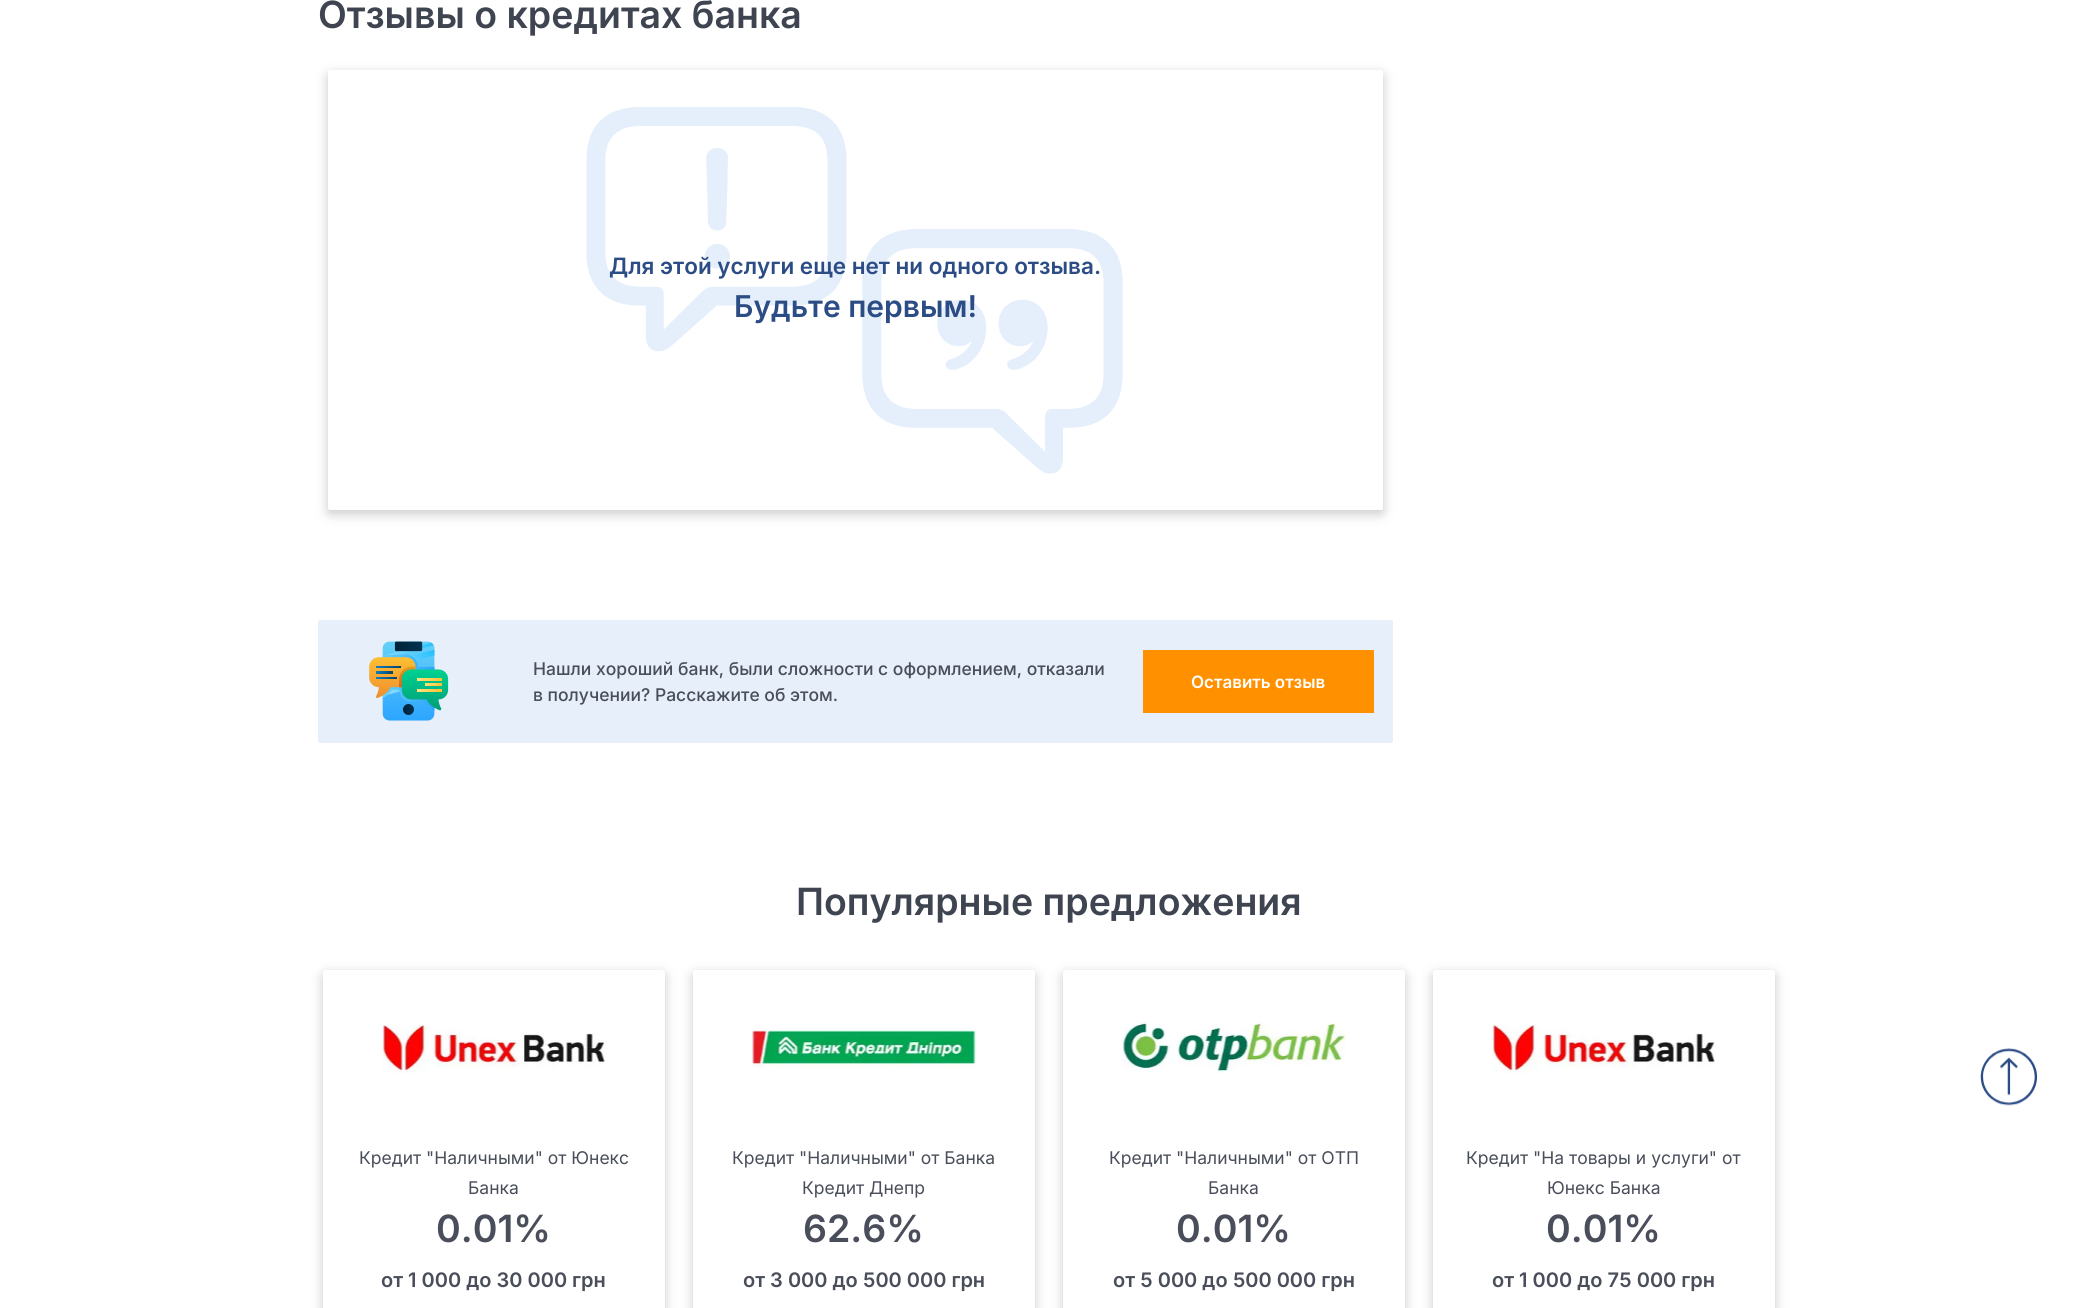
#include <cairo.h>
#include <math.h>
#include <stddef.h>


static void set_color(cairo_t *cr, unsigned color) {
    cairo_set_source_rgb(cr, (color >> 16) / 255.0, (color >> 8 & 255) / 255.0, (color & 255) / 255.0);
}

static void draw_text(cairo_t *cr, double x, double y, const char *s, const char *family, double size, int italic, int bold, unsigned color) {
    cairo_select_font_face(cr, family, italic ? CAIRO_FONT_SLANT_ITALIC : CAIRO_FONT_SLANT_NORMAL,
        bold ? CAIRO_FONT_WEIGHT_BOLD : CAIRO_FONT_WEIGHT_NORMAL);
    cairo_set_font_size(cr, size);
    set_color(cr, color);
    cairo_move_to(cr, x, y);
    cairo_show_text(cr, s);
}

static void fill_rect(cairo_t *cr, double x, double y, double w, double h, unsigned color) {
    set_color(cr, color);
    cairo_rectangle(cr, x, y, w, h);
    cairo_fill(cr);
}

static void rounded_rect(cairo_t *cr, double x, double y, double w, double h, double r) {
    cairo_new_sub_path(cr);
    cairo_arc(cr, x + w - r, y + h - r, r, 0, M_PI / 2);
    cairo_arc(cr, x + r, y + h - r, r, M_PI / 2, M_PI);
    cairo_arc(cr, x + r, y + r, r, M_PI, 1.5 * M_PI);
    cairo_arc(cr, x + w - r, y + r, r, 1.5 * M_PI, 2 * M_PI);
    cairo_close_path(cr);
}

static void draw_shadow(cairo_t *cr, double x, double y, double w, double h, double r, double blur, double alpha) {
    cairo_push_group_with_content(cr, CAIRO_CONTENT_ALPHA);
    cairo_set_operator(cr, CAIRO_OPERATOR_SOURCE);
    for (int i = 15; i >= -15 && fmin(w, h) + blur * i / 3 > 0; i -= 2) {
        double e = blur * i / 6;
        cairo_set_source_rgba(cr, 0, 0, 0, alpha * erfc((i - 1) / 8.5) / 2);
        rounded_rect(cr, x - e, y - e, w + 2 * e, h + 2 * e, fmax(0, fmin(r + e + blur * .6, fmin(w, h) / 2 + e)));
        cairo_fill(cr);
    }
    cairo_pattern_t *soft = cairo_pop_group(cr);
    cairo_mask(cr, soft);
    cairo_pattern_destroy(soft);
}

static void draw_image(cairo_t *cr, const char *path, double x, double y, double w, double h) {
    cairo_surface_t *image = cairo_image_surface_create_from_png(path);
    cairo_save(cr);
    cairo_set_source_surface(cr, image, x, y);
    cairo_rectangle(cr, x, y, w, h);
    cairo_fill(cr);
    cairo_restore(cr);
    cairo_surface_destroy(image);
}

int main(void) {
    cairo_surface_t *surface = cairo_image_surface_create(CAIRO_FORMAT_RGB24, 2097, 1308);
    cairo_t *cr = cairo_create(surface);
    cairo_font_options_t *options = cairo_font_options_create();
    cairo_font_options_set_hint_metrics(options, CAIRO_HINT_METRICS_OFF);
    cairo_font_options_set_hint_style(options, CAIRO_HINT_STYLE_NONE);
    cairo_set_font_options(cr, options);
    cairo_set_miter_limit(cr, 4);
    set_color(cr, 0xFFFFFF);
    cairo_paint(cr);
    draw_text(cr, 318, 28, "Отзывы о кредитах банка", "Inter SemiBold", 37.5, 0, 0, 0x3F4451);
    cairo_save(cr);
    cairo_set_fill_rule(cr, CAIRO_FILL_RULE_EVEN_ODD);
    cairo_new_path(cr);
    cairo_move_to(cr, 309, 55);
    cairo_line_to(cr, 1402, 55);
    cairo_line_to(cr, 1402, 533);
    cairo_line_to(cr, 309, 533);
    cairo_close_path(cr);
    cairo_move_to(cr, 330.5, 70);
    cairo_line_to(cr, 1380.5, 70);
    cairo_curve_to(cr, 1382, 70, 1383, 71, 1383, 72.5);
    cairo_line_to(cr, 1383, 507.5);
    cairo_curve_to(cr, 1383, 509, 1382, 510, 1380.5, 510);
    cairo_line_to(cr, 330.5, 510);
    cairo_curve_to(cr, 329, 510, 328, 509, 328, 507.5);
    cairo_line_to(cr, 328, 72.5);
    cairo_curve_to(cr, 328, 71, 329, 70, 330.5, 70);
    cairo_close_path(cr);
    cairo_clip(cr);
    set_color(cr, 0x2C2B2B);
    draw_shadow(cr, 328, 74, 1055, 440, 2.5, 6, 0.25);
    cairo_restore(cr);
    draw_image(cr, "assets/img1.png", 586, 107, 537, 367);
    draw_text(cr, 609, 274, "Для этой услуги еще нет ни одного отзыва.", "Inter SemiBold", 22.5, 0, 0, 0x2B4C85);
    draw_text(cr, 734, 317, "Будьте первым!", "Inter SemiBold", 30, 0, 0, 0x2B4C85);
    set_color(cr, 0xE7EFFA);
    rounded_rect(cr, 318, 620, 1075, 123, 2.5);
    cairo_fill(cr);
    draw_image(cr, "assets/img2.png", 369, 641, 80, 80);
    draw_text(cr, 533, 675, "Нашли хороший банк, были сложности с оформлением, отказали", "Inter Medium", 17.5, 0, 0, 0x494E5A);
    draw_text(cr, 533, 701, "в получении? Расскажите об этом.", "Inter Medium", 17.5, 0, 0, 0x494E5A);
    fill_rect(cr, 1143, 650, 231, 63, 0xFF9100);
    draw_text(cr, 1191, 688, "Оставить отзыв", "Inter SemiBold", 17, 0, 0, 0xFFFFFF);
    draw_text(cr, 796, 915, "Популярные предложения", "Inter SemiBold", 37.5, 0, 0, 0x3F4451);
    set_color(cr, 0x2C2B2B);
    draw_shadow(cr, 323, 974, 342, 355, 2.5, 6, 0.25);
    set_color(cr, 0xFFFFFF);
    rounded_rect(cr, 323, 970, 342, 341, 2.5);
    cairo_fill(cr);
    draw_image(cr, "assets/img3.png", 382, 1025, 223, 48);
    draw_text(cr, 359, 1164, "Кредит \"Наличными\" от Юнекс", "Inter", 17.5, 0, 0, 0x494E5A);
    draw_text(cr, 468, 1194, "Банка", "Inter", 17.5, 0, 0, 0x494E5A);
    draw_text(cr, 436, 1242, "0.01%", "Inter SemiBold", 37.5, 0, 0, 0x494E5A);
    draw_text(cr, 381, 1287, "от 1 000 до 30 000 грн", "Inter SemiBold", 20, 0, 0, 0x494E5A);
    set_color(cr, 0x2C2B2B);
    draw_shadow(cr, 693, 974, 342, 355, 2.5, 6, 0.25);
    set_color(cr, 0xFFFFFF);
    rounded_rect(cr, 693, 970, 342, 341, 2.5);
    cairo_fill(cr);
    draw_image(cr, "assets/img4.png", 752, 1030, 224, 39);
    draw_text(cr, 732, 1164, "Кредит \"Наличными\" от Банка", "Inter", 17.5, 0, 0, 0x494E5A);
    draw_text(cr, 802, 1194, "Кредит Днепр", "Inter", 17.5, 0, 0, 0x494E5A);
    draw_text(cr, 803, 1242, "62.6%", "Inter SemiBold", 37.5, 0, 0, 0x494E5A);
    draw_text(cr, 743, 1287, "от 3 000 до 500 000 грн", "Inter SemiBold", 20, 0, 0, 0x494E5A);
    set_color(cr, 0x2C2B2B);
    draw_shadow(cr, 1063, 974, 342, 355, 2.5, 6, 0.25);
    set_color(cr, 0xFFFFFF);
    rounded_rect(cr, 1063, 970, 342, 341, 2.5);
    cairo_fill(cr);
    draw_image(cr, "assets/img5.png", 1122, 1020, 224, 53);
    draw_text(cr, 1109, 1164, "Кредит \"Наличными\" от ОТП", "Inter", 17.5, 0, 0, 0x494E5A);
    draw_text(cr, 1208, 1194, "Банка", "Inter", 17.5, 0, 0, 0x494E5A);
    draw_text(cr, 1176, 1242, "0.01%", "Inter SemiBold", 37.5, 0, 0, 0x494E5A);
    draw_text(cr, 1113, 1287, "от 5 000 до 500 000 грн", "Inter SemiBold", 20, 0, 0, 0x494E5A);
    set_color(cr, 0x2C2B2B);
    draw_shadow(cr, 1433, 974, 342, 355, 2.5, 6, 0.25);
    set_color(cr, 0xFFFFFF);
    rounded_rect(cr, 1433, 970, 342, 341, 2.5);
    cairo_fill(cr);
    draw_image(cr, "assets/img6.png", 1492, 1025, 223, 48);
    draw_text(cr, 1466, 1164, "Кредит \"На товары и услуги\" от", "Inter", 17.5, 0, 0, 0x494E5A);
    draw_text(cr, 1547, 1194, "Юнекс Банка", "Inter", 17.5, 0, 0, 0x494E5A);
    draw_text(cr, 1546, 1242, "0.01%", "Inter SemiBold", 37.5, 0, 0, 0x494E5A);
    draw_text(cr, 1492, 1287, "от 1 000 до 75 000 грн", "Inter SemiBold", 20, 0, 0, 0x494E5A);
    draw_image(cr, "assets/img7.png", 1980, 1048, 58, 58);
    cairo_surface_write_to_png(surface, "output.png");
    cairo_font_options_destroy(options);
    cairo_destroy(cr);
    cairo_surface_destroy(surface);
    return 0;
}
